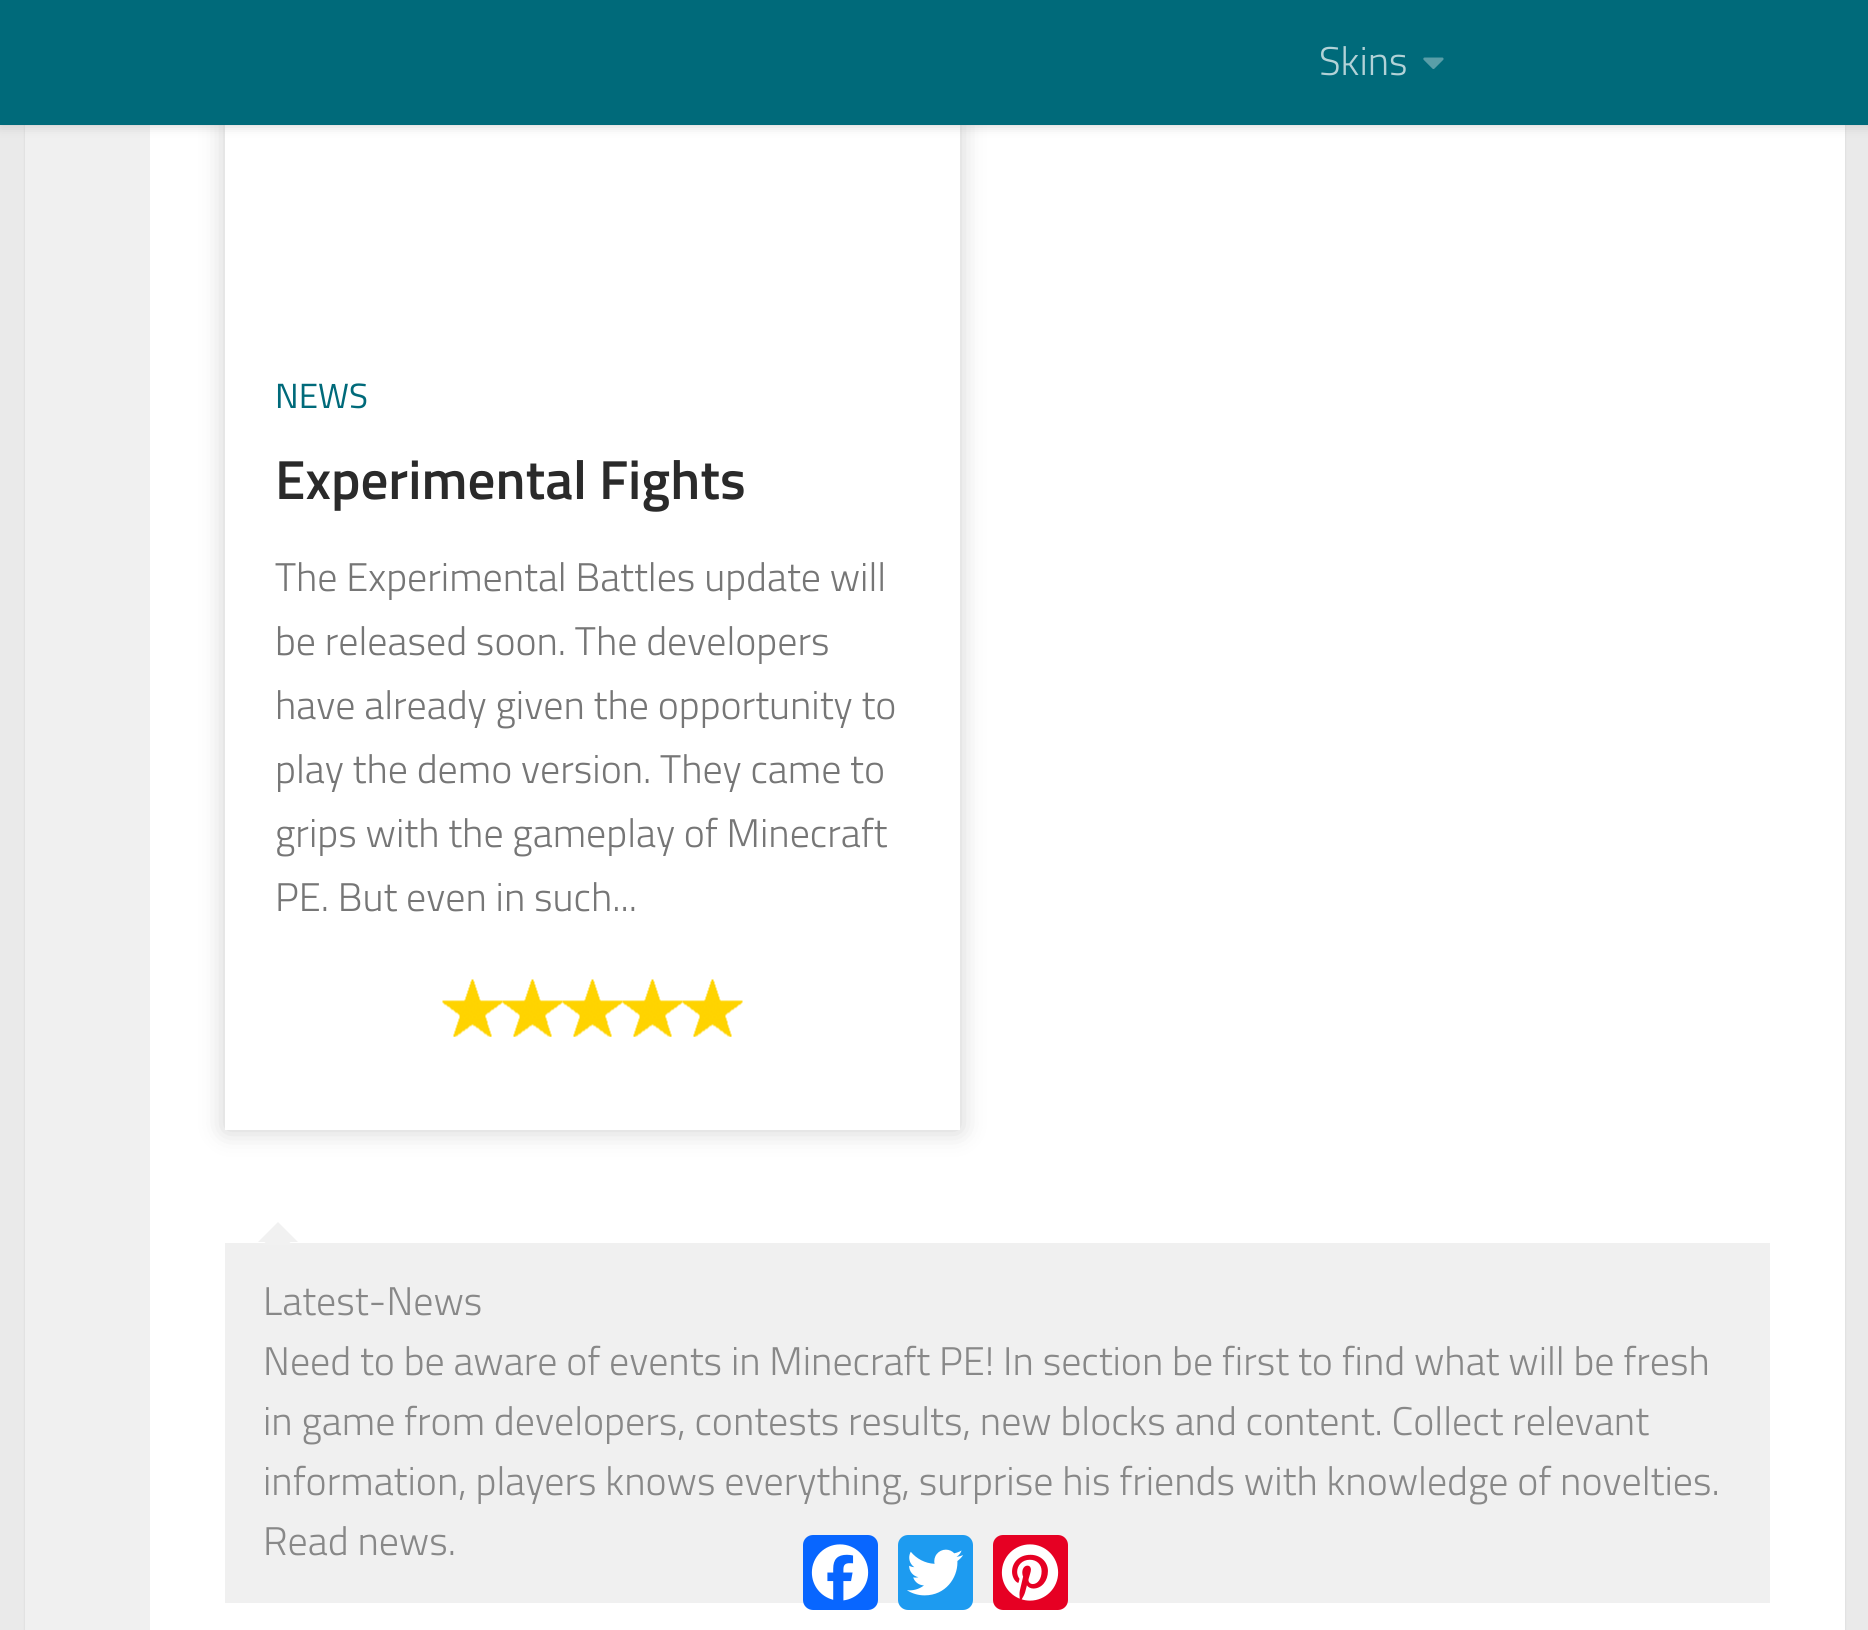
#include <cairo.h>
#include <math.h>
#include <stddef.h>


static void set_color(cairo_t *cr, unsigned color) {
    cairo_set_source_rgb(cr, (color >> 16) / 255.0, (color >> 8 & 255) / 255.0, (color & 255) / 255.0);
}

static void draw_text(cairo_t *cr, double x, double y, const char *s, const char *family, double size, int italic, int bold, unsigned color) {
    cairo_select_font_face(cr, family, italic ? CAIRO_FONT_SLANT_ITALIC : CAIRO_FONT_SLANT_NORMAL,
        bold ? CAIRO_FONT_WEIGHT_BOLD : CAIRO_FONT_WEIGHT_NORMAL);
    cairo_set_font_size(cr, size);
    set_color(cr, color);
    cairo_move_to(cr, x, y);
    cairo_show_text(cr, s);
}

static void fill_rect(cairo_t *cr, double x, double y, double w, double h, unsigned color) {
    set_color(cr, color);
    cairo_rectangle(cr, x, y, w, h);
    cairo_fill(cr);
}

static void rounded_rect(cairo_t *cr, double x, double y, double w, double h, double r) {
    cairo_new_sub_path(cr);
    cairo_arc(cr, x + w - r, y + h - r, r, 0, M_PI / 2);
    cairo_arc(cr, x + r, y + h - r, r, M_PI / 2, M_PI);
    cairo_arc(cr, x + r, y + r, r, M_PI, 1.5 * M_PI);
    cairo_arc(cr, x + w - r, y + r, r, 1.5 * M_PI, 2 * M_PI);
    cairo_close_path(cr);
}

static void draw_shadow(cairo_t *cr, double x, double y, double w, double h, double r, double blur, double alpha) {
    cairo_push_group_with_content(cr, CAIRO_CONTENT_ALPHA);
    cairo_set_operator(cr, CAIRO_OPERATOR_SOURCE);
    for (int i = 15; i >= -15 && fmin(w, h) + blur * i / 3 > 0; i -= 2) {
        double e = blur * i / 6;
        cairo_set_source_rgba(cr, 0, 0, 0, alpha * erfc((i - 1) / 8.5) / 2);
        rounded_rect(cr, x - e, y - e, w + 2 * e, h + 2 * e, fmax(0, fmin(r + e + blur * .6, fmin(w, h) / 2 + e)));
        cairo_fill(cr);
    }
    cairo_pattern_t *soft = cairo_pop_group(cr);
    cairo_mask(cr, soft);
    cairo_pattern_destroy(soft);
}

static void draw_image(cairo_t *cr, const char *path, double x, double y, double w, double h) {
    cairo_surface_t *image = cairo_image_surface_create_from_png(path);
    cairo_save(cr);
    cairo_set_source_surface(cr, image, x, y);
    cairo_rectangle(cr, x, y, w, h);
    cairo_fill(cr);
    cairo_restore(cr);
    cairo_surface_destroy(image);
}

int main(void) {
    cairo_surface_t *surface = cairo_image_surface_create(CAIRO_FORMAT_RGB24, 1868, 1630);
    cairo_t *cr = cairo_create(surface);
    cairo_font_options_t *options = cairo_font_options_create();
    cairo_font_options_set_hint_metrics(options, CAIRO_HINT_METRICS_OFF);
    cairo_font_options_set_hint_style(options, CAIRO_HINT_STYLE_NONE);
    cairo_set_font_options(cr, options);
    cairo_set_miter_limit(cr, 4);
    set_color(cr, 0xEAEAEA);
    cairo_paint(cr);
    set_color(cr, 0x000000);
    draw_shadow(cr, 25, -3, 1820, 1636, 0, 1, 0.1);
    fill_rect(cr, 150, 125, 1695, 1505, 0xFFFFFF);
    fill_rect(cr, 25, 125, 125, 1505, 0xF0F0F0);
    cairo_save(cr);
    cairo_set_fill_rule(cr, CAIRO_FILL_RULE_EVEN_ODD);
    cairo_new_path(cr);
    cairo_move_to(cr, 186, 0);
    cairo_line_to(cr, 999, 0);
    cairo_line_to(cr, 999, 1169);
    cairo_line_to(cr, 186, 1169);
    cairo_close_path(cr);
    cairo_move_to(cr, 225, -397);
    cairo_line_to(cr, 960, -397);
    cairo_line_to(cr, 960, 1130);
    cairo_line_to(cr, 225, 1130);
    cairo_close_path(cr);
    cairo_clip(cr);
    set_color(cr, 0x000000);
    draw_shadow(cr, 225, -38, 735, 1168, 0, 12.5, 0.2);
    cairo_restore(cr);
    cairo_set_source_rgba(cr, 1, 1, 1, 0.15);
    cairo_rectangle(cr, 0, 125, 1868, 3);
    cairo_fill(cr);
    set_color(cr, 0x000000);
    draw_shadow(cr, 0, 0, 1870, 125, 0, 6, 0.2);
    fill_rect(cr, 0, 0, 1868, 125, 0x006A7A);
    draw_text(cr, 1319, 75, "Skins", "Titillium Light", 40, 0, 0, 0xB3D2D7);
    draw_image(cr, "assets/img1.png", 1423, 57, 21, 12);
    draw_text(cr, 275, 408, "NEWS", "Titillium", 35, 0, 0, 0x006A7A);
    draw_text(cr, 275, 499, "Experimental Fights", "Titillium SemiBold", 55, 0, 0, 0x2A2A2A);
    draw_text(cr, 275, 591, "The Experimental Battles update will", "Titillium Light", 40, 0, 0, 0x767676);
    draw_text(cr, 275, 655, "be released soon. The developers", "Titillium Light", 40, 0, 0, 0x767676);
    draw_text(cr, 275, 719, "have already given the opportunity to", "Titillium Light", 40, 0, 0, 0x767676);
    draw_text(cr, 275, 783, "play the demo version. They came to", "Titillium Light", 40, 0, 0, 0x767676);
    draw_text(cr, 275, 847, "grips with the gameplay of Minecraft", "Titillium Light", 40, 0, 0, 0x767676);
    draw_text(cr, 275, 911, "PE. But even in such...", "Titillium Light", 40, 0, 0, 0x767676);
    draw_image(cr, "assets/img2.png", 442, 979, 61, 58);
    draw_image(cr, "assets/img3.png", 502, 979, 61, 58);
    draw_image(cr, "assets/img4.png", 562, 979, 61, 58);
    draw_image(cr, "assets/img5.png", 622, 979, 61, 58);
    draw_image(cr, "assets/img6.png", 682, 979, 61, 58);
    fill_rect(cr, 225, 1243, 1545, 360, 0xF0F0F0);
    set_color(cr, 0xF1F1F1);
    cairo_new_path(cr);
    cairo_move_to(cr, 298, 1242);
    cairo_line_to(cr, 258, 1242);
    cairo_line_to(cr, 278, 1222);
    cairo_close_path(cr);
    cairo_fill(cr);
    cairo_new_path(cr);
    cairo_move_to(cr, 292.5, 1245);
    cairo_line_to(cr, 262.5, 1245);
    cairo_line_to(cr, 277.5, 1230);
    cairo_close_path(cr);
    cairo_fill(cr);
    draw_text(cr, 263, 1315, "Latest-News", "Titillium Light", 40, 0, 0, 0x888888);
    draw_text(cr, 263, 1375, "Need to be aware of events in Minecraft PE! In section be first to find what will be fresh", "Titillium Light", 40, 0, 0, 0x888888);
    draw_text(cr, 263, 1435, "in game from developers, contests results, new blocks and content. Collect relevant", "Titillium Light", 40, 0, 0, 0x888888);
    draw_text(cr, 263, 1495, "information, players knows everything, surprise his friends with knowledge of novelties.", "Titillium Light", 40, 0, 0, 0x888888);
    draw_text(cr, 263, 1555, "Read news.", "Titillium Light", 40, 0, 0, 0x888888);
    set_color(cr, 0x0866FF);
    rounded_rect(cr, 803, 1535, 75, 75, 10);
    cairo_fill(cr);
    draw_image(cr, "assets/img7.png", 811, 1544, 58, 57);
    set_color(cr, 0x1D9BF0);
    rounded_rect(cr, 898, 1535, 75, 75, 10);
    cairo_fill(cr);
    draw_image(cr, "assets/img8.png", 907, 1549, 56, 47);
    set_color(cr, 0xE60023);
    rounded_rect(cr, 993, 1535, 75, 75, 10);
    cairo_fill(cr);
    draw_image(cr, "assets/img9.png", 1001, 1544, 58, 57);
    cairo_surface_write_to_png(surface, "output.png");
    cairo_font_options_destroy(options);
    cairo_destroy(cr);
    cairo_surface_destroy(surface);
    return 0;
}
